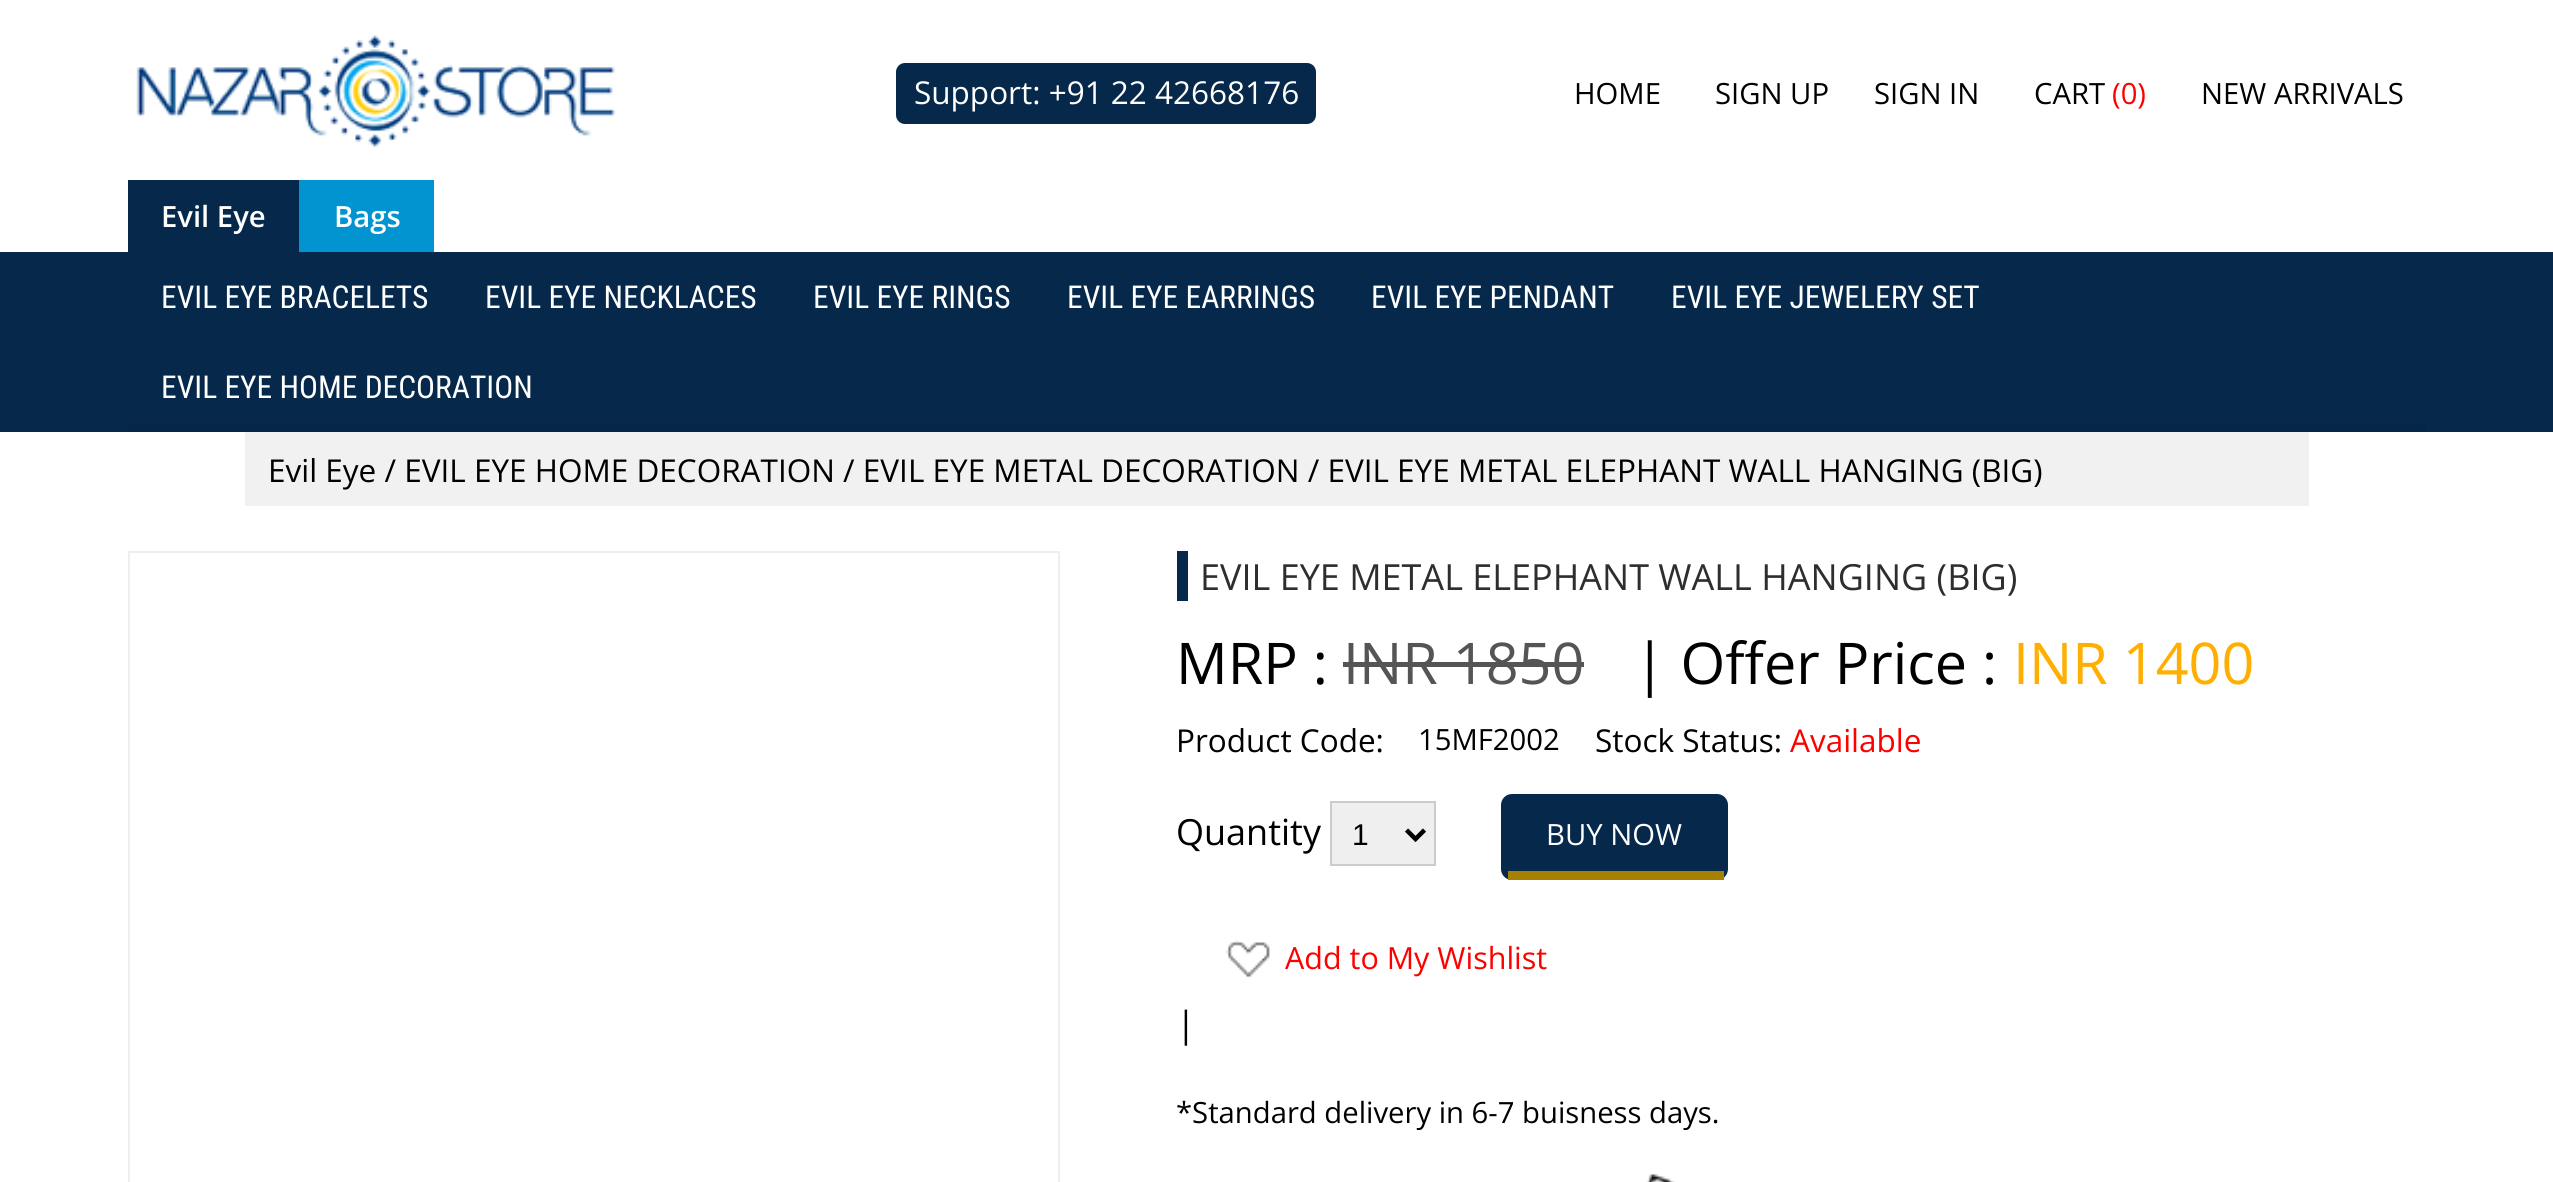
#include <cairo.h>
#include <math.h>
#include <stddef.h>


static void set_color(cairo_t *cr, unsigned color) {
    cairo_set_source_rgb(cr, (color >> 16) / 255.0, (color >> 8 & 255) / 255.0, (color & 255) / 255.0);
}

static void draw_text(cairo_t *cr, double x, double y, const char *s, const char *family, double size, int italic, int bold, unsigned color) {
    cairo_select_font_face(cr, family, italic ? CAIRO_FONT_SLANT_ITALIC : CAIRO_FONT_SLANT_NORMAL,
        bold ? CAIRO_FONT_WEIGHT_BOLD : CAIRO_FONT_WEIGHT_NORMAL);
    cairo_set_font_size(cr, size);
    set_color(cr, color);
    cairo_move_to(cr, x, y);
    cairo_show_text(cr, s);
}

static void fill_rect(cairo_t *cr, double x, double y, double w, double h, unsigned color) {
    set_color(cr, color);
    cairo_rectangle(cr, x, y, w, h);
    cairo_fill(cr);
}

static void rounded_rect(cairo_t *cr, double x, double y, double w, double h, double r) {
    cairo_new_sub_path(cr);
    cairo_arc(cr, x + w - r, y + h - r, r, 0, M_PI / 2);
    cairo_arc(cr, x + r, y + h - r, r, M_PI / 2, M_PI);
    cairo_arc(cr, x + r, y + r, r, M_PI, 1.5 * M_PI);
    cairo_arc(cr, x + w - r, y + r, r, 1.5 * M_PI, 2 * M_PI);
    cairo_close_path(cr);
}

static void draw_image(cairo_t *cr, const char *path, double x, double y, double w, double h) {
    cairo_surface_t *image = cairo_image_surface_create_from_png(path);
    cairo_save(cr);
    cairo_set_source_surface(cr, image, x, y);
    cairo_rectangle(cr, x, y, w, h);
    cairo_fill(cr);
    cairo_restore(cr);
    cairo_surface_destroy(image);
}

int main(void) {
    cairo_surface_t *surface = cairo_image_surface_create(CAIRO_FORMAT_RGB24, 2553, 1182);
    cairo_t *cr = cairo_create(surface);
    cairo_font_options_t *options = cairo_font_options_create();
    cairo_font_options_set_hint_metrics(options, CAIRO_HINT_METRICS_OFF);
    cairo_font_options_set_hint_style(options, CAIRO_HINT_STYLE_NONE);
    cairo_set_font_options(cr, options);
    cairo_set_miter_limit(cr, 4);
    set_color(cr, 0xFFFFFF);
    cairo_paint(cr);
    draw_image(cr, "assets/img1.png", 136, 35, 479, 112);
    set_color(cr, 0x06284B);
    rounded_rect(cr, 896, 63, 420, 61, 9);
    cairo_fill(cr);
    draw_text(cr, 914, 104, "Support: +91 22 42668176", "Open Sans", 31.5, 0, 0, 0xFFFFFF);
    draw_text(cr, 1574, 104, "HOME", "Open Sans", 29.25, 0, 0, 0x000000);
    draw_text(cr, 1715, 104, "SIGN UP", "Open Sans", 29.25, 0, 0, 0x000000);
    draw_text(cr, 1874, 104, "SIGN IN", "Open Sans", 29.25, 0, 0, 0x000000);
    draw_text(cr, 2034, 104, "CART", "Open Sans", 29.25, 0, 0, 0x000000);
    draw_text(cr, 2112, 104, "(0)", "Open Sans", 29.25, 0, 0, 0xFF0000);
    draw_text(cr, 2201, 104, "NEW ARRIVALS", "Open Sans", 29.25, 0, 0, 0x000000);
    fill_rect(cr, 128, 180, 171, 72, 0x06284B);
    draw_text(cr, 161, 227, "Evil Eye", "Open Sans SemiBold", 29.25, 0, 0, 0xFFFFFF);
    fill_rect(cr, 299, 180, 135, 72, 0x0294D1);
    draw_text(cr, 334, 227, "Bags", "Open Sans SemiBold", 29.25, 0, 0, 0xFFFFFF);
    fill_rect(cr, 0, 252, 2553, 180, 0x06284B);
    fill_rect(cr, 128, 425, 2298, 7, 0x062647);
    draw_text(cr, 161, 308, "EVIL EYE BRACELETS", "Roboto Condensed", 31.5, 0, 0, 0xFFFFFF);
    draw_text(cr, 485, 308, "EVIL EYE NECKLACES", "Roboto Condensed", 31.5, 0, 0, 0xFFFFFF);
    draw_text(cr, 813, 308, "EVIL EYE RINGS", "Roboto Condensed", 31.5, 0, 0, 0xFFFFFF);
    draw_text(cr, 1067, 308, "EVIL EYE EARRINGS", "Roboto Condensed", 31.5, 0, 0, 0xFFFFFF);
    draw_text(cr, 1371, 308, "EVIL EYE PENDANT", "Roboto Condensed", 31.5, 0, 0, 0xFFFFFF);
    draw_text(cr, 1671, 308, "EVIL EYE JEWELERY SET", "Roboto Condensed", 31.5, 0, 0, 0xFFFFFF);
    draw_text(cr, 161, 398, "EVIL EYE HOME DECORATION", "Roboto Condensed", 31.5, 0, 0, 0xFFFFFF);
    fill_rect(cr, 245, 432, 2064, 74, 0xF1F1F1);
    draw_text(cr, 268, 482, "Evil Eye / EVIL EYE HOME DECORATION / EVIL EYE METAL DECORATION / EVIL EYE METAL ELEPHANT WALL HANGING (BIG)", "Open Sans", 31.5, 0, 0, 0x000000);
    cairo_rectangle(cr, 129, 552, 930, 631);
    set_color(cr, 0xEEEEEE);
    cairo_stroke(cr);
    fill_rect(cr, 1177, 551, 11, 50, 0x06284B);
    draw_text(cr, 1200, 590, "EVIL EYE METAL ELEPHANT WALL HANGING (BIG)", "Open Sans", 36, 0, 0, 0x2E2E2E);
    draw_text(cr, 1176, 684, "MRP :", "Open Sans", 57.5, 0, 0, 0x000000);
    draw_text(cr, 1343, 684, "INR 1850", "Open Sans", 57.5, 0, 0, 0x555555);
    fill_rect(cr, 1343, 662, 241, 5, 0x555555);
    draw_text(cr, 1634, 684, "| Offer Price :", "Open Sans", 57.5, 0, 0, 0x000000);
    draw_text(cr, 2013, 684, "INR 1400", "Open Sans", 57.5, 0, 0, 0xFFAF02);
    draw_text(cr, 1176, 752, "Product Code:", "Open Sans", 31.5, 0, 0, 0x000000);
    draw_text(cr, 1418, 750, "15MF2002", "Open Sans", 29.25, 0, 0, 0x000000);
    draw_text(cr, 1595, 752, "Stock Status:", "Open Sans", 31.5, 0, 0, 0x000000);
    draw_text(cr, 1790, 752, "Available", "Open Sans", 31.5, 0, 0, 0xFF0000);
    draw_text(cr, 1176, 845, "Quantity", "Open Sans", 36, 0, 0, 0x000000);
    set_color(cr, 0xEFEFEF);
    cairo_rectangle(cr, 1331, 802, 104, 63);
    cairo_fill_preserve(cr);
    set_color(cr, 0xCCCCCC);
    cairo_stroke(cr);
    cairo_new_path(cr);
    cairo_move_to(cr, 1406.5, 830);
    cairo_line_to(cr, 1415.5, 839);
    cairo_line_to(cr, 1424.5, 830);
    set_color(cr, 0x000000);
    cairo_set_line_width(cr, 4.5);
    cairo_stroke(cr);
    draw_text(cr, 1352, 845, "1", "Liberation Sans", 30, 0, 0, 0x000000);
    set_color(cr, 0x06284B);
    rounded_rect(cr, 1501, 794, 227, 86, 11);
    cairo_fill(cr);
    fill_rect(cr, 1508, 871, 216, 9, 0xA58001);
    draw_text(cr, 1546, 845, "BUY NOW", "Open Sans", 29.25, 0, 0, 0xFFFFFF);
    draw_image(cr, "assets/img2.png", 1226, 940, 44, 38);
    draw_text(cr, 1285, 969, "Add to My Wishlist", "Open Sans", 30.5, 0, 0, 0xFF0000);
    draw_text(cr, 1176, 1037, "|", "Open Sans", 36, 0, 0, 0x000000);
    draw_text(cr, 1176, 1123, "*Standard delivery in 6-7 buisness days.", "Open Sans", 29.25, 0, 0, 0x000000);
    draw_image(cr, "assets/img3.png", 1646, 1174, 29, 8);
    cairo_surface_write_to_png(surface, "output.png");
    cairo_font_options_destroy(options);
    cairo_destroy(cr);
    cairo_surface_destroy(surface);
    return 0;
}
